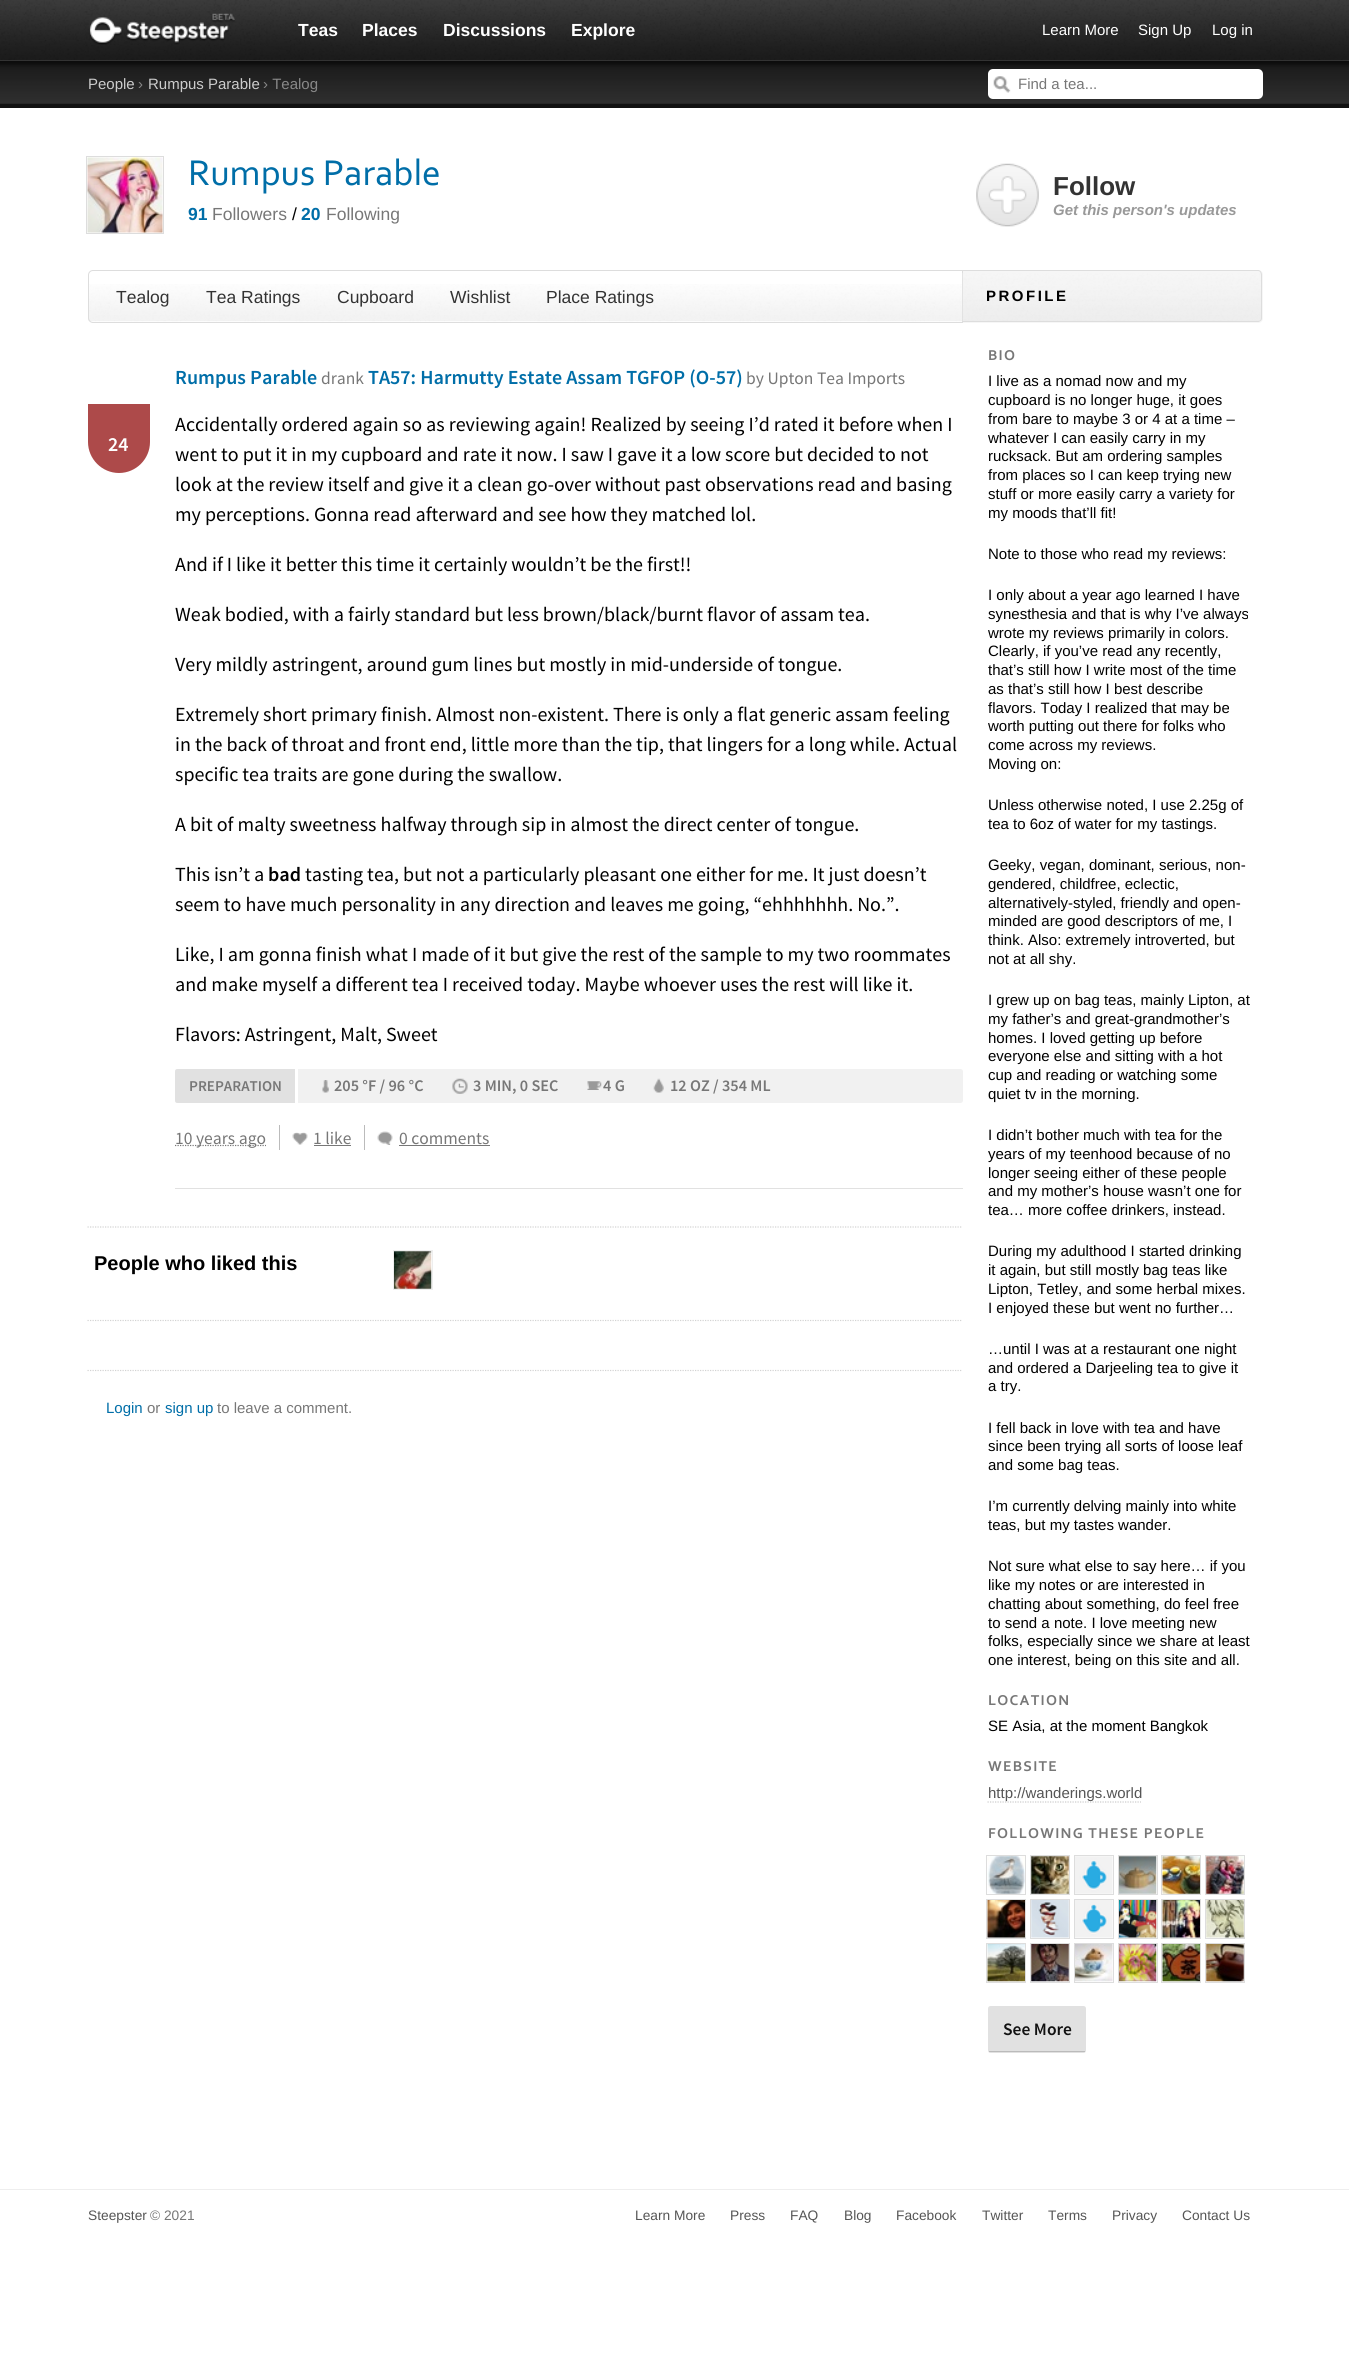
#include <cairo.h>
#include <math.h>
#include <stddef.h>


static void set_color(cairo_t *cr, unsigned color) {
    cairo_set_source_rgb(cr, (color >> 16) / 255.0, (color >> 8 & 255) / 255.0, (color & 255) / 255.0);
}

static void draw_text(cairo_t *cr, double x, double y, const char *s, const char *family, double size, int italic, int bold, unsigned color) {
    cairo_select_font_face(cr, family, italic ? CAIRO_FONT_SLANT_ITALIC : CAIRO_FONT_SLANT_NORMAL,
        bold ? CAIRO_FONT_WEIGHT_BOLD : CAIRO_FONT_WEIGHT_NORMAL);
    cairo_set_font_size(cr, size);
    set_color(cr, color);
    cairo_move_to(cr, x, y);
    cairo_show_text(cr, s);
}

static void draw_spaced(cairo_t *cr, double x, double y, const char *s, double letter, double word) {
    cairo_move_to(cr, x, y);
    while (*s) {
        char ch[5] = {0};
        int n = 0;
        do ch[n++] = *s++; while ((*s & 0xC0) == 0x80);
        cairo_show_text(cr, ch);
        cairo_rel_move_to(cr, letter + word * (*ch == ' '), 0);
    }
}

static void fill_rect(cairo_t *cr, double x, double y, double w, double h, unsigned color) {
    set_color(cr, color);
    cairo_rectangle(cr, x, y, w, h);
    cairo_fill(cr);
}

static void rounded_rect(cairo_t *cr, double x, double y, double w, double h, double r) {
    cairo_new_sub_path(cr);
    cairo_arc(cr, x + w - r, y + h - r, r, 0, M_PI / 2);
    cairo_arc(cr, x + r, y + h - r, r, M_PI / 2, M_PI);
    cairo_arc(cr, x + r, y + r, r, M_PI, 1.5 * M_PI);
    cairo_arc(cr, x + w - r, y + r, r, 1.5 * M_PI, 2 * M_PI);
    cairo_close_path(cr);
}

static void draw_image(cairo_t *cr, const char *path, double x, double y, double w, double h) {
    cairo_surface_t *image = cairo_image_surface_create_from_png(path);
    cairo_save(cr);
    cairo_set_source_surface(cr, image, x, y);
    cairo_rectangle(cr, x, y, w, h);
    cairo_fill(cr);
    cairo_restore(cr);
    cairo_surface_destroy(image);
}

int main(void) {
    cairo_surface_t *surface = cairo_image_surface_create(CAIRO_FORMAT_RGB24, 1349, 2380);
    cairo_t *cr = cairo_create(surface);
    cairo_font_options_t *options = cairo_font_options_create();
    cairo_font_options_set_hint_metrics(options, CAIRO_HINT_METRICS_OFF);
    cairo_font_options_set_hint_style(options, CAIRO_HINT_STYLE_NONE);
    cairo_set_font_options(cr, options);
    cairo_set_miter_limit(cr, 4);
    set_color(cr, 0xFFFFFF);
    cairo_paint(cr);
    draw_image(cr, "assets/img1.png", 0, 0, 1349, 60);
    draw_image(cr, "assets/img2.png", 89, 13, 146, 32);
    draw_text(cr, 298, 36, "Teas", "Liberation Sans", 17.5, 0, 1, 0xFFFFFF);
    draw_text(cr, 362, 36, "Places", "Liberation Sans", 17.5, 0, 1, 0xFFFFFF);
    draw_text(cr, 443, 36, "Discussions", "Liberation Sans", 17.5, 0, 1, 0xFFFFFF);
    draw_text(cr, 571, 36, "Explore", "Liberation Sans", 17.5, 0, 1, 0xFFFFFF);
    draw_text(cr, 1042, 35, "Learn More", "Liberation Sans", 15, 0, 0, 0xFFFFFF);
    draw_text(cr, 1138, 35, "Sign Up", "Liberation Sans", 15, 0, 0, 0xFFFFFF);
    draw_text(cr, 1212, 35, "Log in", "Liberation Sans", 15, 0, 0, 0xFFFFFF);
    fill_rect(cr, 0, 61, 1349, 47, 0x111111);
    draw_image(cr, "assets/img3.png", 0, 61, 1349, 43);
    fill_rect(cr, 0, 60, 1349, 1, 0x333333);
    draw_text(cr, 88, 89, "People", "Liberation Sans", 15, 0, 0, 0xCCCCCC);
    draw_text(cr, 138, 89, "›", "Liberation Sans", 15, 0, 0, 0x888888);
    draw_text(cr, 148, 89, "Rumpus Parable", "Liberation Sans", 15, 0, 0, 0xCCCCCC);
    draw_text(cr, 263, 89, "› Tealog", "Liberation Sans", 15, 0, 0, 0x888888);
    set_color(cr, 0xFFFFFF);
    rounded_rect(cr, 988, 69, 275, 30, 5);
    cairo_fill(cr);
    draw_image(cr, "assets/img4.png", 993, 76, 18, 17);
    draw_text(cr, 1018, 89, "Find a tea...", "Liberation Sans", 15, 0, 0, 0x777777);
    draw_image(cr, "assets/img5.png", 87, 157, 76, 76);
    cairo_rectangle(cr, 86.5, 156.5, 77, 77);
    set_color(cr, 0xDDDDDD);
    cairo_set_line_width(cr, 1);
    cairo_stroke(cr);
    draw_text(cr, 188, 185, "Rumpus Parable", "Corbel", 37.5, 0, 0, 0x006EA8);
    draw_text(cr, 188, 220, "91", "Liberation Sans", 17.5, 0, 1, 0x006EA8);
    draw_text(cr, 212, 220, "Followers", "Liberation Sans", 17.5, 0, 0, 0x777777);
    draw_text(cr, 292, 220, "/", "Liberation Sans", 17.5, 0, 0, 0x000000);
    draw_text(cr, 301, 220, "20", "Liberation Sans", 17.5, 0, 1, 0x006EA8);
    draw_text(cr, 326, 220, "Following", "Liberation Sans", 17.5, 0, 0, 0x777777);
    draw_image(cr, "assets/img6.png", 88, 284, 874, 38);
    cairo_new_path(cr);
    cairo_move_to(cr, 93, 270.5);
    cairo_line_to(cr, 962.5, 270.5);
    cairo_line_to(cr, 962.5, 322.5);
    cairo_line_to(cr, 93, 322.5);
    cairo_curve_to(cr, 90.5, 322.5, 88.5, 320.5, 88.5, 318);
    cairo_line_to(cr, 88.5, 275);
    cairo_curve_to(cr, 88.5, 272.5, 90.5, 270.5, 93, 270.5);
    cairo_close_path(cr);
    set_color(cr, 0xDDDDDD);
    cairo_stroke(cr);
    draw_text(cr, 116, 303, "Tealog", "Liberation Sans", 17.5, 0, 0, 0x333333);
    draw_text(cr, 206, 303, "Tea Ratings", "Liberation Sans", 17.5, 0, 0, 0x333333);
    draw_text(cr, 337, 303, "Cupboard", "Liberation Sans", 17.5, 0, 0, 0x333333);
    draw_text(cr, 450, 303, "Wishlist", "Liberation Sans", 17.5, 0, 0, 0x333333);
    draw_text(cr, 546, 303, "Place Ratings", "Liberation Sans", 17.5, 0, 0, 0x333333);
    draw_text(cr, 175, 384, "Rumpus Parable", "Source Sans Pro SemiBold", 20, 0, 0, 0x006EA8);
    draw_text(cr, 321, 384, "drank", "Source Sans Pro", 17.5, 0, 0, 0x777777);
    draw_text(cr, 368, 384, "TA57: Harmutty Estate Assam TGFOP (O-57)", "Source Sans Pro SemiBold", 20, 0, 0, 0x006EA8);
    draw_text(cr, 746, 384, "by Upton Tea Imports", "Source Sans Pro", 17.5, 0, 0, 0x777777);
    set_color(cr, 0xAD4A4A);
    cairo_new_path(cr);
    cairo_move_to(cr, 88, 404);
    cairo_line_to(cr, 150, 404);
    cairo_line_to(cr, 150, 442);
    cairo_curve_to(cr, 150, 459, 136, 473, 119, 473);
    cairo_curve_to(cr, 102, 473, 88, 459, 88, 442);
    cairo_close_path(cr);
    cairo_fill(cr);
    draw_text(cr, 108, 451, "24", "Source Sans Pro SemiBold", 20, 0, 0, 0xFFFFFF);
    fill_rect(cr, 175, 1188, 788, 1, 0xE1E1E1);
    draw_text(cr, 175, 431, "Accidentally ordered again so as reviewing again! Realized by seeing I’d rated it before when I", "Source Sans Pro", 20, 0, 0, 0x000000);
    draw_text(cr, 175, 461, "went to put it in my cupboard and rate it now. I saw I gave it a low score but decided to not", "Source Sans Pro", 20, 0, 0, 0x000000);
    draw_text(cr, 175, 491, "look at the review itself and give it a clean go-over without past observations read and basing", "Source Sans Pro", 20, 0, 0, 0x000000);
    draw_text(cr, 175, 521, "my perceptions. Gonna read afterward and see how they matched lol.", "Source Sans Pro", 20, 0, 0, 0x000000);
    draw_text(cr, 175, 571, "And if I like it better this time it certainly wouldn’t be the first!!", "Source Sans Pro", 20, 0, 0, 0x000000);
    draw_text(cr, 175, 621, "Weak bodied, with a fairly standard but less brown/black/burnt flavor of assam tea.", "Source Sans Pro", 20, 0, 0, 0x000000);
    draw_text(cr, 175, 671, "Very mildly astringent, around gum lines but mostly in mid-underside of tongue.", "Source Sans Pro", 20, 0, 0, 0x000000);
    draw_text(cr, 175, 721, "Extremely short primary finish. Almost non-existent. There is only a flat generic assam feeling", "Source Sans Pro", 20, 0, 0, 0x000000);
    draw_text(cr, 175, 751, "in the back of throat and front end, little more than the tip, that lingers for a long while. Actual", "Source Sans Pro", 20, 0, 0, 0x000000);
    draw_text(cr, 175, 781, "specific tea traits are gone during the swallow.", "Source Sans Pro", 20, 0, 0, 0x000000);
    draw_text(cr, 175, 831, "A bit of malty sweetness halfway through sip in almost the direct center of tongue.", "Source Sans Pro", 20, 0, 0, 0x000000);
    draw_text(cr, 175, 881, "This isn’t a", "Source Sans Pro", 20, 0, 0, 0x000000);
    draw_text(cr, 268, 881, "bad", "Source Sans Pro SemiBold", 20, 0, 0, 0x000000);
    draw_text(cr, 305, 881, "tasting tea, but not a particularly pleasant one either for me. It just doesn’t", "Source Sans Pro", 20, 0, 0, 0x000000);
    draw_text(cr, 175, 911, "seem to have much personality in any direction and leaves me going, “ehhhhhhh. No.”.", "Source Sans Pro", 20, 0, 0, 0x000000);
    draw_text(cr, 175, 961, "Like, I am gonna finish what I made of it but give the rest of the sample to my two roommates", "Source Sans Pro", 20, 0, 0, 0x000000);
    draw_text(cr, 175, 991, "and make myself a different tea I received today. Maybe whoever uses the rest will like it.", "Source Sans Pro", 20, 0, 0, 0x000000);
    draw_text(cr, 175, 1041, "Flavors: Astringent, Malt, Sweet", "Source Sans Pro", 20, 0, 0, 0x000000);
    set_color(cr, 0xF1F1F1);
    rounded_rect(cr, 175, 1069, 788, 34, 2.5);
    cairo_fill(cr);
    set_color(cr, 0xE1E1E1);
    cairo_new_path(cr);
    cairo_move_to(cr, 177.5, 1069);
    cairo_line_to(cr, 298, 1069);
    cairo_line_to(cr, 298, 1103);
    cairo_line_to(cr, 177.5, 1103);
    cairo_curve_to(cr, 176, 1103, 175, 1102, 175, 1100.5);
    cairo_line_to(cr, 175, 1071.5);
    cairo_curve_to(cr, 175, 1070, 176, 1069, 177.5, 1069);
    cairo_close_path(cr);
    cairo_fill(cr);
    fill_rect(cr, 295, 1069, 3, 34, 0xFFFFFF);
    draw_text(cr, 189, 1091, "PREPARATION", "Source Sans Pro SemiBold", 15, 0, 0, 0x777777);
    draw_image(cr, "assets/img7.png", 322, 1080, 7, 13);
    draw_text(cr, 334, 1091, "205 °F / 96 °C", "Source Sans Pro SemiBold", 16.25, 0, 0, 0x777777);
    draw_image(cr, "assets/img8.png", 452, 1078, 16, 16);
    draw_text(cr, 473, 1091, "3 MIN, 0 SEC", "Source Sans Pro SemiBold", 16.25, 0, 0, 0x777777);
    draw_image(cr, "assets/img9.png", 587, 1081, 15, 9);
    draw_text(cr, 603, 1091, "4 G", "Source Sans Pro SemiBold", 16.25, 0, 0, 0x777777);
    draw_image(cr, "assets/img10.png", 653, 1078, 11, 15);
    draw_text(cr, 670, 1091, "12 OZ / 354 ML", "Source Sans Pro SemiBold", 16.25, 0, 0, 0x777777);
    fill_rect(cr, 279, 1125, 1, 25, 0xBBBBBB);
    cairo_new_path(cr);
    cairo_move_to(cr, 175, 1145.5);
    cairo_line_to(cr, 266, 1145.5);
    set_color(cr, 0x777777);
    cairo_set_line_width(cr, 1.2);
    cairo_set_dash(cr, (double[]){1.25, 1.25}, 2, 0);
    cairo_stroke(cr);
    draw_text(cr, 175, 1144, "10 years ago", "Source Sans Pro", 17.5, 0, 0, 0x777777);
    draw_image(cr, "assets/img11.png", 292, 1132, 16, 13);
    fill_rect(cr, 364, 1125, 1, 25, 0xBBBBBB);
    draw_text(cr, 313, 1144, "1 like", "Source Sans Pro", 17.5, 0, 0, 0x777777);
    fill_rect(cr, 314, 1145, 37, 1, 0x777777);
    draw_image(cr, "assets/img12.png", 377, 1131, 16, 14);
    draw_text(cr, 399, 1144, "0 comments", "Source Sans Pro", 17.5, 0, 0, 0x777777);
    fill_rect(cr, 399, 1145, 91, 1, 0x777777);
    cairo_new_path(cr);
    cairo_move_to(cr, 87.5, 1227);
    cairo_line_to(cr, 962.5, 1227);
    set_color(cr, 0xD3D3D3);
    cairo_stroke(cr);
    draw_text(cr, 94, 1270, "People who liked this", "Liberation Sans", 20, 0, 1, 0x000000);
    draw_image(cr, "assets/img13.png", 394, 1251, 38, 38);
    cairo_rectangle(cr, 393.5, 1250.5, 39, 39);
    set_color(cr, 0xEEEEEE);
    cairo_set_line_width(cr, 1);
    cairo_set_dash(cr, NULL, 0, 0);
    cairo_stroke(cr);
    cairo_new_path(cr);
    cairo_move_to(cr, 87.5, 1320.5);
    cairo_line_to(cr, 962.5, 1320.5);
    set_color(cr, 0xD3D3D3);
    cairo_set_line_width(cr, 1.2);
    cairo_set_dash(cr, (double[]){1.25, 1.25}, 2, 0);
    cairo_stroke(cr);
    cairo_new_path(cr);
    cairo_move_to(cr, 87.5, 1370.5);
    cairo_line_to(cr, 962.5, 1370.5);
    cairo_stroke(cr);
    draw_text(cr, 106, 1413, "Login", "Liberation Sans", 15, 0, 0, 0x006EA8);
    draw_text(cr, 147, 1413, "or", "Liberation Sans", 15, 0, 0, 0x777777);
    draw_text(cr, 165, 1413, "sign up", "Liberation Sans", 15, 0, 0, 0x006EA8);
    draw_text(cr, 217, 1413, "to leave a comment.", "Liberation Sans", 15, 0, 0, 0x777777);
    draw_image(cr, "assets/img14.png", 976, 163, 63, 64);
    draw_text(cr, 1053, 195, "Follow", "Liberation Sans", 26, 0, 1, 0x333333);
    draw_text(cr, 1053, 215, "Get this person's updates", "Liberation Sans", 15, 1, 1, 0x999999);
    set_color(cr, 0xF6F6F6);
    cairo_new_path(cr);
    cairo_move_to(cr, 963, 270);
    cairo_line_to(cr, 1258, 270);
    cairo_curve_to(cr, 1261, 270, 1263, 272, 1263, 275);
    cairo_line_to(cr, 1263, 318);
    cairo_curve_to(cr, 1263, 321, 1261, 323, 1258, 323);
    cairo_line_to(cr, 963, 323);
    cairo_close_path(cr);
    cairo_fill(cr);
    draw_image(cr, "assets/img15.png", 962, 273, 300, 48);
    set_color(cr, 0xDDDDDD);
    cairo_set_fill_rule(cr, CAIRO_FILL_RULE_EVEN_ODD);
    cairo_new_path(cr);
    cairo_move_to(cr, 962, 270);
    cairo_line_to(cr, 1258, 270);
    cairo_curve_to(cr, 1260, 270, 1262, 272, 1262, 275);
    cairo_line_to(cr, 1262, 318);
    cairo_curve_to(cr, 1262, 320, 1260, 322, 1258, 322);
    cairo_line_to(cr, 962, 322);
    cairo_close_path(cr);
    cairo_move_to(cr, 962, 271);
    cairo_line_to(cr, 1258, 271);
    cairo_curve_to(cr, 1260, 271, 1261, 273, 1261, 275);
    cairo_line_to(cr, 1261, 318);
    cairo_curve_to(cr, 1261, 320, 1260, 321, 1258, 321);
    cairo_line_to(cr, 962, 321);
    cairo_close_path(cr);
    cairo_fill(cr);
    cairo_select_font_face(cr, "Liberation Sans", CAIRO_FONT_SLANT_NORMAL, CAIRO_FONT_WEIGHT_BOLD);
    set_color(cr, 0x000000);
    draw_spaced(cr, 986, 301, "PROFILE", 2.5, 0);
    cairo_select_font_face(cr, "Corbel", CAIRO_FONT_SLANT_NORMAL, CAIRO_FONT_WEIGHT_BOLD);
    set_color(cr, 0x777777);
    draw_spaced(cr, 988, 360, "BIO", 1.25, 0);
    draw_text(cr, 988, 386, "I live as a nomad now and my", "Liberation Sans", 15, 0, 0, 0x000000);
    draw_text(cr, 988, 405, "cupboard is no longer huge, it goes", "Liberation Sans", 15, 0, 0, 0x000000);
    draw_text(cr, 988, 424, "from bare to maybe 3 or 4 at a time –", "Liberation Sans", 15, 0, 0, 0x000000);
    draw_text(cr, 988, 443, "whatever I can easily carry in my", "Liberation Sans", 15, 0, 0, 0x000000);
    draw_text(cr, 988, 461, "rucksack. But am ordering samples", "Liberation Sans", 15, 0, 0, 0x000000);
    draw_text(cr, 988, 480, "from places so I can keep trying new", "Liberation Sans", 15, 0, 0, 0x000000);
    draw_text(cr, 988, 499, "stuff or more easily carry a variety for", "Liberation Sans", 15, 0, 0, 0x000000);
    draw_text(cr, 988, 518, "my moods that’ll fit!", "Liberation Sans", 15, 0, 0, 0x000000);
    draw_text(cr, 988, 559, "Note to those who read my reviews:", "Liberation Sans", 15, 0, 0, 0x000000);
    draw_text(cr, 988, 600, "I only about a year ago learned I have", "Liberation Sans", 15, 0, 0, 0x000000);
    draw_text(cr, 988, 619, "synesthesia and that is why I’ve always", "Liberation Sans", 15, 0, 0, 0x000000);
    draw_text(cr, 988, 638, "wrote my reviews primarily in colors.", "Liberation Sans", 15, 0, 0, 0x000000);
    draw_text(cr, 988, 656, "Clearly, if you’ve read any recently,", "Liberation Sans", 15, 0, 0, 0x000000);
    draw_text(cr, 988, 675, "that’s still how I write most of the time", "Liberation Sans", 15, 0, 0, 0x000000);
    draw_text(cr, 988, 694, "as that’s still how I best describe", "Liberation Sans", 15, 0, 0, 0x000000);
    draw_text(cr, 988, 713, "flavors. Today I realized that may be", "Liberation Sans", 15, 0, 0, 0x000000);
    draw_text(cr, 988, 731, "worth putting out there for folks who", "Liberation Sans", 15, 0, 0, 0x000000);
    draw_text(cr, 988, 750, "come across my reviews.", "Liberation Sans", 15, 0, 0, 0x000000);
    draw_text(cr, 988, 769, "Moving on:", "Liberation Sans", 15, 0, 0, 0x000000);
    draw_text(cr, 988, 810, "Unless otherwise noted, I use 2.25g of", "Liberation Sans", 15, 0, 0, 0x000000);
    draw_text(cr, 988, 829, "tea to 6oz of water for my tastings.", "Liberation Sans", 15, 0, 0, 0x000000);
    draw_text(cr, 988, 870, "Geeky, vegan, dominant, serious, non-", "Liberation Sans", 15, 0, 0, 0x000000);
    draw_text(cr, 988, 889, "gendered, childfree, eclectic,", "Liberation Sans", 15, 0, 0, 0x000000);
    draw_text(cr, 988, 908, "alternatively-styled, friendly and open-", "Liberation Sans", 15, 0, 0, 0x000000);
    draw_text(cr, 988, 926, "minded are good descriptors of me, I", "Liberation Sans", 15, 0, 0, 0x000000);
    draw_text(cr, 988, 945, "think. Also: extremely introverted, but", "Liberation Sans", 15, 0, 0, 0x000000);
    draw_text(cr, 988, 964, "not at all shy.", "Liberation Sans", 15, 0, 0, 0x000000);
    draw_text(cr, 988, 1005, "I grew up on bag teas, mainly Lipton, at", "Liberation Sans", 15, 0, 0, 0x000000);
    draw_text(cr, 988, 1024, "my father’s and great-grandmother’s", "Liberation Sans", 15, 0, 0, 0x000000);
    draw_text(cr, 988, 1043, "homes. I loved getting up before", "Liberation Sans", 15, 0, 0, 0x000000);
    draw_text(cr, 988, 1061, "everyone else and sitting with a hot", "Liberation Sans", 15, 0, 0, 0x000000);
    draw_text(cr, 988, 1080, "cup and reading or watching some", "Liberation Sans", 15, 0, 0, 0x000000);
    draw_text(cr, 988, 1099, "quiet tv in the morning.", "Liberation Sans", 15, 0, 0, 0x000000);
    draw_text(cr, 988, 1140, "I didn’t bother much with tea for the", "Liberation Sans", 15, 0, 0, 0x000000);
    draw_text(cr, 988, 1159, "years of my teenhood because of no", "Liberation Sans", 15, 0, 0, 0x000000);
    draw_text(cr, 988, 1178, "longer seeing either of these people", "Liberation Sans", 15, 0, 0, 0x000000);
    draw_text(cr, 988, 1196, "and my mother’s house wasn’t one for", "Liberation Sans", 15, 0, 0, 0x000000);
    draw_text(cr, 988, 1215, "tea… more coffee drinkers, instead.", "Liberation Sans", 15, 0, 0, 0x000000);
    draw_text(cr, 988, 1256, "During my adulthood I started drinking", "Liberation Sans", 15, 0, 0, 0x000000);
    draw_text(cr, 988, 1275, "it again, but still mostly bag teas like", "Liberation Sans", 15, 0, 0, 0x000000);
    draw_text(cr, 988, 1294, "Lipton, Tetley, and some herbal mixes.", "Liberation Sans", 15, 0, 0, 0x000000);
    draw_text(cr, 988, 1313, "I enjoyed these but went no further…", "Liberation Sans", 15, 0, 0, 0x000000);
    draw_text(cr, 988, 1354, "…until I was at a restaurant one night", "Liberation Sans", 15, 0, 0, 0x000000);
    draw_text(cr, 988, 1373, "and ordered a Darjeeling tea to give it", "Liberation Sans", 15, 0, 0, 0x000000);
    draw_text(cr, 988, 1391, "a try.", "Liberation Sans", 15, 0, 0, 0x000000);
    draw_text(cr, 988, 1433, "I fell back in love with tea and have", "Liberation Sans", 15, 0, 0, 0x000000);
    draw_text(cr, 988, 1451, "since been trying all sorts of loose leaf", "Liberation Sans", 15, 0, 0, 0x000000);
    draw_text(cr, 988, 1470, "and some bag teas.", "Liberation Sans", 15, 0, 0, 0x000000);
    draw_text(cr, 988, 1511, "I’m currently delving mainly into white", "Liberation Sans", 15, 0, 0, 0x000000);
    draw_text(cr, 988, 1530, "teas, but my tastes wander.", "Liberation Sans", 15, 0, 0, 0x000000);
    draw_text(cr, 988, 1571, "Not sure what else to say here… if you", "Liberation Sans", 15, 0, 0, 0x000000);
    draw_text(cr, 988, 1590, "like my notes or are interested in", "Liberation Sans", 15, 0, 0, 0x000000);
    draw_text(cr, 988, 1609, "chatting about something, do feel free", "Liberation Sans", 15, 0, 0, 0x000000);
    draw_text(cr, 988, 1628, "to send a note. I love meeting new", "Liberation Sans", 15, 0, 0, 0x000000);
    draw_text(cr, 988, 1646, "folks, especially since we share at least", "Liberation Sans", 15, 0, 0, 0x000000);
    draw_text(cr, 988, 1665, "one interest, being on this site and all.", "Liberation Sans", 15, 0, 0, 0x000000);
    cairo_select_font_face(cr, "Corbel", CAIRO_FONT_SLANT_NORMAL, CAIRO_FONT_WEIGHT_BOLD);
    set_color(cr, 0x777777);
    draw_spaced(cr, 988, 1705, "LOCATION", 1.25, 0);
    draw_text(cr, 988, 1731, "SE Asia, at the moment Bangkok", "Liberation Sans", 15, 0, 0, 0x000000);
    cairo_select_font_face(cr, "Corbel", CAIRO_FONT_SLANT_NORMAL, CAIRO_FONT_WEIGHT_BOLD);
    set_color(cr, 0x777777);
    draw_spaced(cr, 988, 1771, "WEBSITE", 1.25, 0);
    cairo_new_path(cr);
    cairo_move_to(cr, 987.5, 1802);
    cairo_line_to(cr, 1141, 1802);
    set_color(cr, 0xCCCCCC);
    cairo_stroke(cr);
    draw_text(cr, 988, 1798, "http://wanderings.world", "Liberation Sans", 15, 0, 0, 0x555555);
    cairo_select_font_face(cr, "Corbel", CAIRO_FONT_SLANT_NORMAL, CAIRO_FONT_WEIGHT_BOLD);
    set_color(cr, 0x777777);
    draw_spaced(cr, 988, 1838, "FOLLOWING THESE PEOPLE", 1.25, 0);
    draw_image(cr, "assets/img16.png", 987, 1856, 38, 38);
    cairo_rectangle(cr, 986.5, 1855.5, 39, 39);
    set_color(cr, 0xDDDDDD);
    cairo_set_line_width(cr, 1);
    cairo_set_dash(cr, NULL, 0, 0);
    cairo_stroke(cr);
    draw_image(cr, "assets/img17.png", 1031, 1856, 38, 38);
    cairo_rectangle(cr, 1030.5, 1855.5, 39, 39);
    cairo_stroke(cr);
    draw_image(cr, "assets/img18.png", 1075, 1856, 38, 38);
    cairo_rectangle(cr, 1074.5, 1855.5, 39, 39);
    cairo_stroke(cr);
    draw_image(cr, "assets/img19.png", 1119, 1856, 38, 38);
    cairo_rectangle(cr, 1118.5, 1855.5, 39, 39);
    cairo_stroke(cr);
    draw_image(cr, "assets/img20.png", 1162, 1856, 38, 38);
    cairo_rectangle(cr, 1161.5, 1855.5, 39, 39);
    cairo_stroke(cr);
    draw_image(cr, "assets/img21.png", 1206, 1856, 38, 38);
    cairo_rectangle(cr, 1205.5, 1855.5, 39, 39);
    cairo_stroke(cr);
    draw_image(cr, "assets/img22.png", 987, 1900, 38, 38);
    cairo_rectangle(cr, 986.5, 1899.5, 39, 39);
    cairo_stroke(cr);
    draw_image(cr, "assets/img23.png", 1031, 1900, 38, 38);
    cairo_rectangle(cr, 1030.5, 1899.5, 39, 39);
    cairo_stroke(cr);
    draw_image(cr, "assets/img24.png", 1075, 1900, 38, 38);
    cairo_rectangle(cr, 1074.5, 1899.5, 39, 39);
    cairo_stroke(cr);
    draw_image(cr, "assets/img25.png", 1119, 1900, 38, 38);
    cairo_rectangle(cr, 1118.5, 1899.5, 39, 39);
    cairo_stroke(cr);
    draw_image(cr, "assets/img26.png", 1162, 1900, 38, 38);
    cairo_rectangle(cr, 1161.5, 1899.5, 39, 39);
    cairo_stroke(cr);
    draw_image(cr, "assets/img27.png", 1206, 1900, 38, 38);
    cairo_rectangle(cr, 1205.5, 1899.5, 39, 39);
    cairo_stroke(cr);
    draw_image(cr, "assets/img28.png", 987, 1944, 38, 38);
    cairo_rectangle(cr, 986.5, 1943.5, 39, 39);
    cairo_stroke(cr);
    draw_image(cr, "assets/img29.png", 1031, 1944, 38, 38);
    cairo_rectangle(cr, 1030.5, 1943.5, 39, 39);
    cairo_stroke(cr);
    draw_image(cr, "assets/img30.png", 1075, 1944, 38, 38);
    cairo_rectangle(cr, 1074.5, 1943.5, 39, 39);
    cairo_stroke(cr);
    draw_image(cr, "assets/img31.png", 1119, 1944, 38, 38);
    cairo_rectangle(cr, 1118.5, 1943.5, 39, 39);
    cairo_stroke(cr);
    draw_image(cr, "assets/img32.png", 1162, 1944, 38, 38);
    cairo_rectangle(cr, 1161.5, 1943.5, 39, 39);
    cairo_stroke(cr);
    draw_image(cr, "assets/img33.png", 1206, 1944, 38, 38);
    cairo_rectangle(cr, 1205.5, 1943.5, 39, 39);
    cairo_stroke(cr);
    set_color(cr, 0xE1E1E1);
    rounded_rect(cr, 988, 2006, 98, 47, 2.5);
    cairo_fill(cr);
    fill_rect(cr, 989, 2051, 96, 1, 0xBBBBBB);
    draw_text(cr, 1003, 2035, "See More", "Source Sans Pro SemiBold", 17.5, 0, 0, 0x111111);
    fill_rect(cr, 0, 2189, 1349, 1, 0xEEEEEE);
    draw_text(cr, 88, 2220, "Steepster", "Liberation Sans", 13.75, 0, 0, 0x555555);
    draw_text(cr, 150, 2220, "© 2021", "Liberation Sans", 13.75, 0, 0, 0x777777);
    draw_text(cr, 635, 2220, "Learn More", "Liberation Sans", 13.75, 0, 0, 0x555555);
    draw_text(cr, 730, 2220, "Press", "Liberation Sans", 13.75, 0, 0, 0x555555);
    draw_text(cr, 790, 2220, "FAQ", "Liberation Sans", 13.75, 0, 0, 0x555555);
    draw_text(cr, 844, 2220, "Blog", "Liberation Sans", 13.75, 0, 0, 0x555555);
    draw_text(cr, 896, 2220, "Facebook", "Liberation Sans", 13.75, 0, 0, 0x555555);
    draw_text(cr, 982, 2220, "Twitter", "Liberation Sans", 13.75, 0, 0, 0x555555);
    draw_text(cr, 1048, 2220, "Terms", "Liberation Sans", 13.75, 0, 0, 0x555555);
    draw_text(cr, 1112, 2220, "Privacy", "Liberation Sans", 13.75, 0, 0, 0x555555);
    draw_text(cr, 1182, 2220, "Contact Us", "Liberation Sans", 13.75, 0, 0, 0x555555);
    cairo_surface_write_to_png(surface, "output.png");
    cairo_font_options_destroy(options);
    cairo_destroy(cr);
    cairo_surface_destroy(surface);
    return 0;
}
